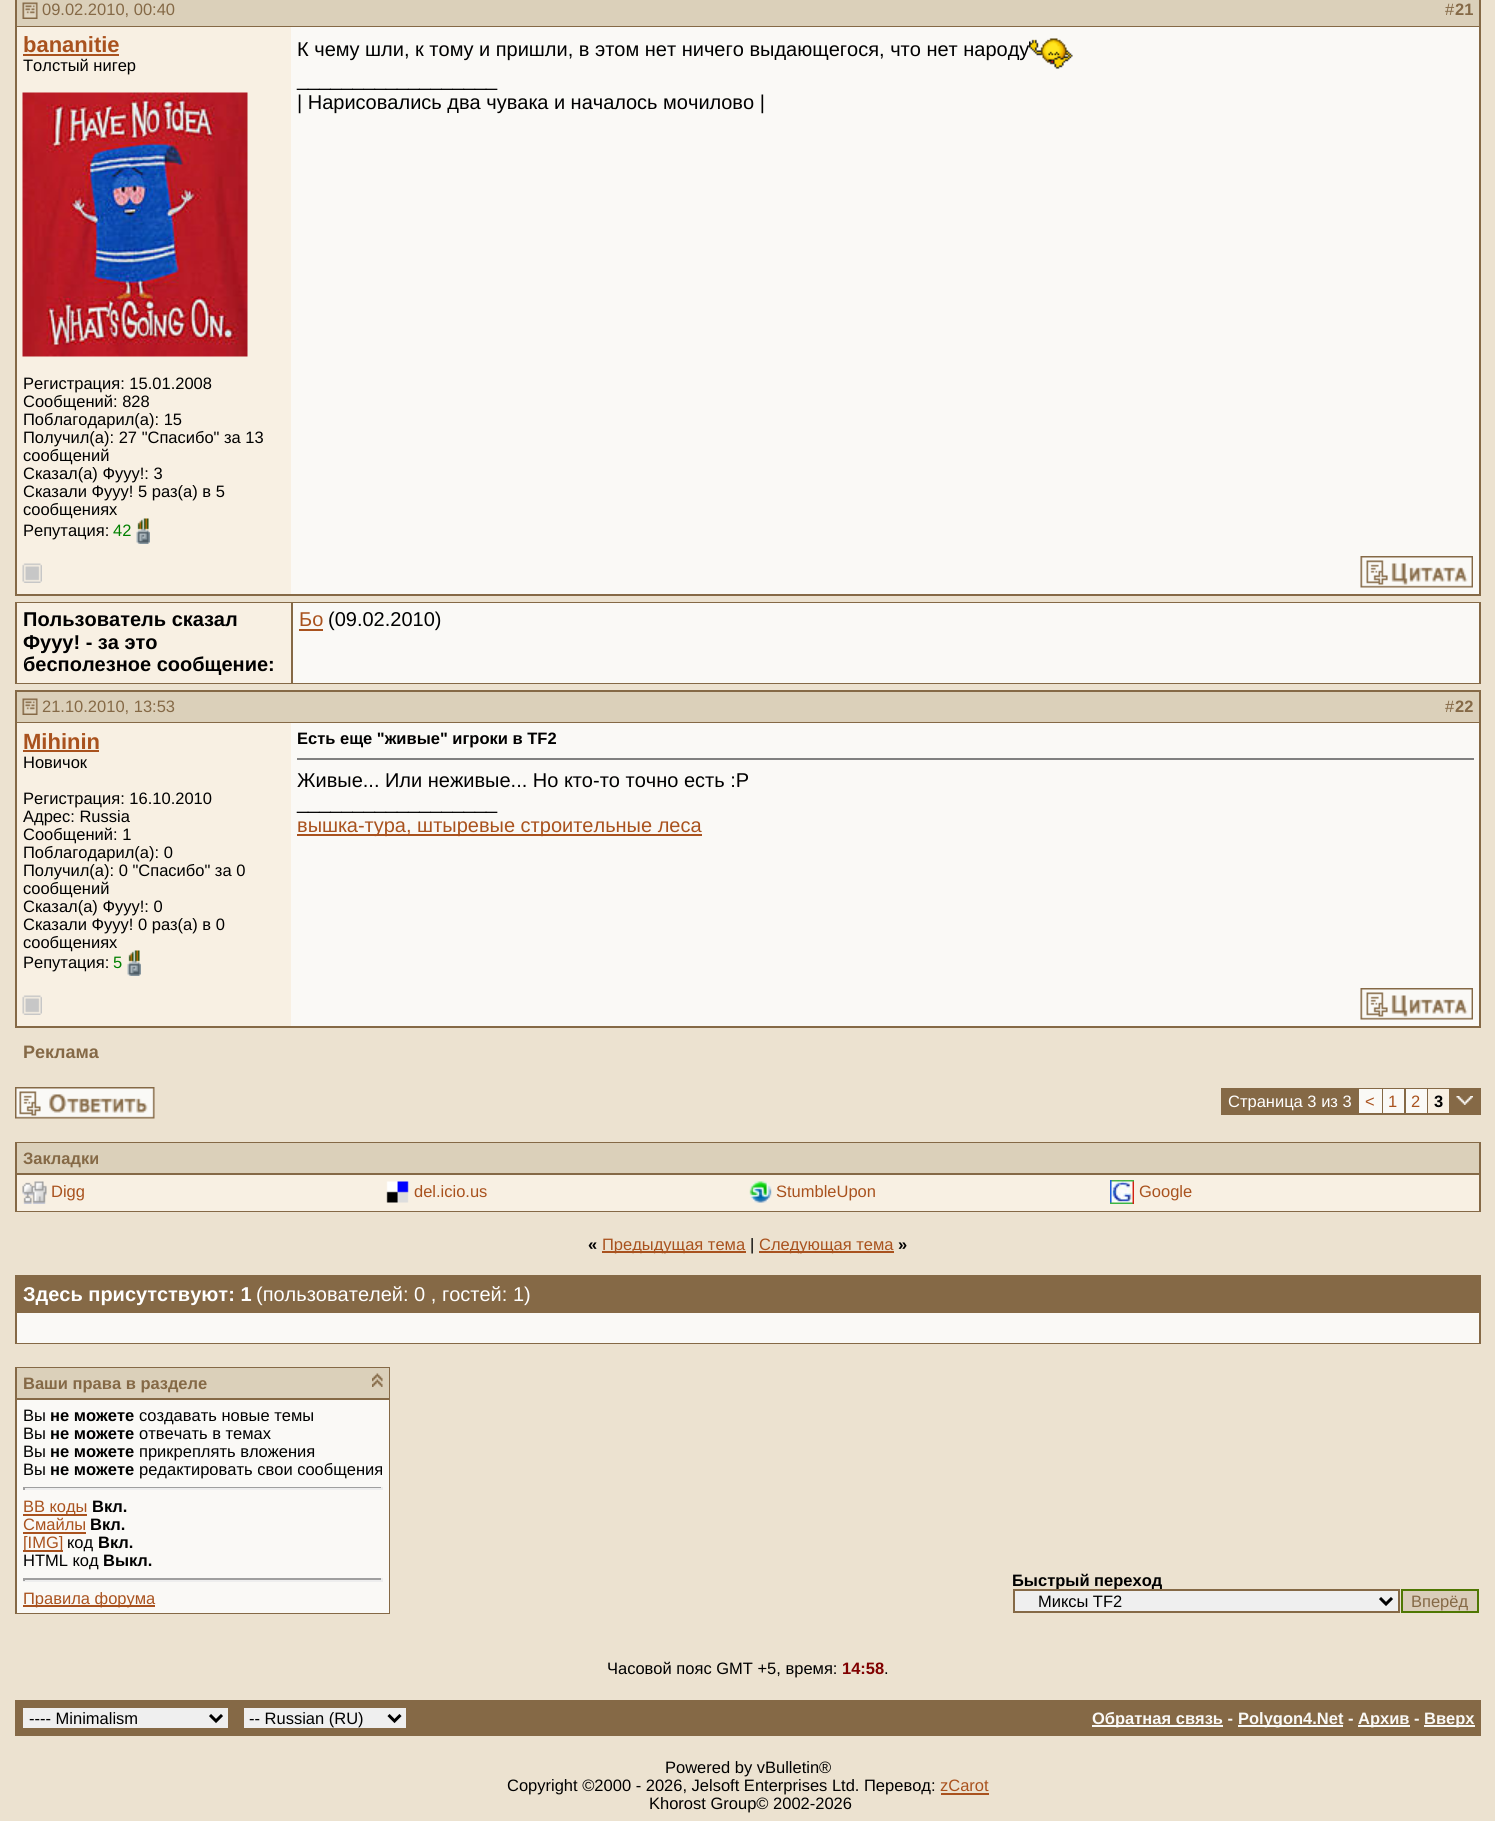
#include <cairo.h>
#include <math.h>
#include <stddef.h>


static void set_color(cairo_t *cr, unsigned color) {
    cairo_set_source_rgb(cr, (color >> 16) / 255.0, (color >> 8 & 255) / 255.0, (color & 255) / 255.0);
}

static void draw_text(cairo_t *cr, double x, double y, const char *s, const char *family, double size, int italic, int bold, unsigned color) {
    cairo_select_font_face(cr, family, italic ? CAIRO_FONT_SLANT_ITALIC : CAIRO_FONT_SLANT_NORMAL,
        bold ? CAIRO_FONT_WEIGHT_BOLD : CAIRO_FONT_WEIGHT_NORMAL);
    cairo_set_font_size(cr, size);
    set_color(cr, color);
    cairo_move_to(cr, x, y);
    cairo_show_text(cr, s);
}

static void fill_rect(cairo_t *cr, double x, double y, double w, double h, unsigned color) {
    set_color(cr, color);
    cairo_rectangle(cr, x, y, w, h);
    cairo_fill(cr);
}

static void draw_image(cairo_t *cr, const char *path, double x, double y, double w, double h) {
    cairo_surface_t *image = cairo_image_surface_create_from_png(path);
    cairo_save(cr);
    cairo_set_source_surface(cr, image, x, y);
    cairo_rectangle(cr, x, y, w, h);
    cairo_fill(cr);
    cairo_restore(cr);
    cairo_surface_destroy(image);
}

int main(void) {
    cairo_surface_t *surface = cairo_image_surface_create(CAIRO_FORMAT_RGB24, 1495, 1821);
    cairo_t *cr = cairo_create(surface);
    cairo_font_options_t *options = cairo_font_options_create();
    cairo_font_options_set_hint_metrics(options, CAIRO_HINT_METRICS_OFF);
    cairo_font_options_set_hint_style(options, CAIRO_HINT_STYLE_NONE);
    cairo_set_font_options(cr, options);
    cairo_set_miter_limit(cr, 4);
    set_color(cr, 0xECE2D0);
    cairo_paint(cr);
    fill_rect(cr, 17, 0, 1462, 26, 0xDBD0BA);
    fill_rect(cr, 15, 26, 276, 1, 0x856946);
    fill_rect(cr, 15, 0, 2, 551, 0x856946);
    draw_image(cr, "assets/img1.png", 22, 2, 16, 17);
    draw_text(cr, 42, 15, "09.02.2010, 00:40", "Liberation Sans", 16.5, 0, 0, 0x856946);
    fill_rect(cr, 1479, 0, 2, 596, 0x856946);
    fill_rect(cr, 291, 26, 1190, 1, 0x856946);
    draw_text(cr, 1445, 15, "#", "Liberation Sans", 16.5, 0, 0, 0x856946);
    draw_text(cr, 1455, 15, "21", "Liberation Sans", 16.5, 0, 1, 0x856946);
    fill_rect(cr, 17, 27, 274, 567, 0xF8F0E3);
    draw_text(cr, 23, 52, "bananitie", "Liberation Sans", 22, 0, 1, 0xA9521E);
    fill_rect(cr, 23, 54, 96, 2, 0xA9521E);
    draw_text(cr, 23, 71, "Толстый нигер", "Liberation Sans", 16.5, 0, 0, 0x000000);
    draw_image(cr, "assets/img2.png", 22, 92, 226, 265);
    draw_text(cr, 23, 389, "Регистрация: 15.01.2008", "Liberation Sans", 16.5, 0, 0, 0x000000);
    draw_text(cr, 23, 407, "Сообщений: 828", "Liberation Sans", 16.5, 0, 0, 0x000000);
    draw_text(cr, 23, 425, "Поблагодарил(а): 15", "Liberation Sans", 16.5, 0, 0, 0x000000);
    draw_text(cr, 23, 443, "Получил(а): 27 \"Спасибо\" за 13", "Liberation Sans", 16.5, 0, 0, 0x000000);
    draw_text(cr, 23, 461, "сообщений", "Liberation Sans", 16.5, 0, 0, 0x000000);
    draw_text(cr, 23, 479, "Сказал(а) Фууу!: 3", "Liberation Sans", 16.5, 0, 0, 0x000000);
    draw_text(cr, 23, 497, "Сказали Фууу! 5 раз(а) в 5", "Liberation Sans", 16.5, 0, 0, 0x000000);
    draw_text(cr, 23, 515, "сообщениях", "Liberation Sans", 16.5, 0, 0, 0x000000);
    draw_text(cr, 23, 536, "Репутация:", "Liberation Sans", 16.5, 0, 0, 0x000000);
    draw_text(cr, 113, 536, "42", "Liberation Sans", 16.5, 0, 0, 0x008000);
    draw_image(cr, "assets/img3.png", 136, 518, 14, 26);
    fill_rect(cr, 291, 27, 1188, 567, 0xFAF9F6);
    draw_text(cr, 297, 56, "К чему шли, к тому и пришли, в этом нет ничего выдающегося, что нет народу", "Liberation Sans", 20, 0, 0, 0x000000);
    draw_image(cr, "assets/img4.png", 1029, 38, 44, 31);
    draw_text(cr, 297, 86, "__________________", "Liberation Sans", 20, 0, 0, 0x000000);
    draw_text(cr, 297, 109, "| Нарисовались два чувака и началось мочилово |", "Liberation Sans", 20, 0, 0, 0x000000);
    fill_rect(cr, 15, 594, 1466, 2, 0x856946);
    fill_rect(cr, 15, 551, 2, 45, 0x856946);
    draw_image(cr, "assets/img5.png", 22, 563, 20, 20);
    draw_image(cr, "assets/img6.png", 1360, 556, 113, 32);
    fill_rect(cr, 15, 602, 1466, 82, 0x856946);
    fill_rect(cr, 17, 603, 274, 80, 0xF8F0E3);
    draw_text(cr, 23, 626, "Пользователь сказал", "Liberation Sans", 20, 0, 1, 0x000000);
    draw_text(cr, 23, 649, "Фууу! - за это", "Liberation Sans", 20, 0, 1, 0x000000);
    draw_text(cr, 23, 671, "бесполезное сообщение:", "Liberation Sans", 20, 0, 1, 0x000000);
    fill_rect(cr, 293, 603, 1186, 80, 0xFAF9F6);
    draw_text(cr, 299, 626, "Бо", "Liberation Sans", 20, 0, 0, 0xA9521E);
    fill_rect(cr, 299, 629, 24, 2, 0xA9521E);
    draw_text(cr, 328, 626, "(09.02.2010)", "Liberation Sans", 20, 0, 0, 0x000000);
    fill_rect(cr, 17, 692, 1462, 30, 0xDBD0BA);
    fill_rect(cr, 15, 690, 1466, 2, 0x856946);
    fill_rect(cr, 15, 722, 276, 1, 0x856946);
    fill_rect(cr, 15, 690, 2, 293, 0x856946);
    draw_image(cr, "assets/img1.png", 22, 698, 16, 17);
    draw_text(cr, 42, 712, "21.10.2010, 13:53", "Liberation Sans", 16.5, 0, 0, 0x856946);
    fill_rect(cr, 1479, 690, 2, 338, 0x856946);
    fill_rect(cr, 291, 722, 1190, 1, 0x856946);
    draw_text(cr, 1445, 712, "#", "Liberation Sans", 16.5, 0, 0, 0x856946);
    draw_text(cr, 1455, 712, "22", "Liberation Sans", 16.5, 0, 1, 0x856946);
    fill_rect(cr, 17, 723, 274, 303, 0xF8F0E3);
    draw_text(cr, 23, 749, "Mihinin", "Liberation Sans", 22, 0, 1, 0xA9521E);
    fill_rect(cr, 23, 750, 76, 2, 0xA9521E);
    draw_text(cr, 23, 768, "Новичок", "Liberation Sans", 16.5, 0, 0, 0x000000);
    draw_text(cr, 23, 804, "Регистрация: 16.10.2010", "Liberation Sans", 16.5, 0, 0, 0x000000);
    draw_text(cr, 23, 822, "Адрес: Russia", "Liberation Sans", 16.5, 0, 0, 0x000000);
    draw_text(cr, 23, 840, "Сообщений: 1", "Liberation Sans", 16.5, 0, 0, 0x000000);
    draw_text(cr, 23, 858, "Поблагодарил(а): 0", "Liberation Sans", 16.5, 0, 0, 0x000000);
    draw_text(cr, 23, 876, "Получил(а): 0 \"Спасибо\" за 0", "Liberation Sans", 16.5, 0, 0, 0x000000);
    draw_text(cr, 23, 894, "сообщений", "Liberation Sans", 16.5, 0, 0, 0x000000);
    draw_text(cr, 23, 912, "Сказал(а) Фууу!: 0", "Liberation Sans", 16.5, 0, 0, 0x000000);
    draw_text(cr, 23, 930, "Сказали Фууу! 0 раз(а) в 0", "Liberation Sans", 16.5, 0, 0, 0x000000);
    draw_text(cr, 23, 948, "сообщениях", "Liberation Sans", 16.5, 0, 0, 0x000000);
    draw_text(cr, 23, 968, "Репутация:", "Liberation Sans", 16.5, 0, 0, 0x000000);
    draw_text(cr, 113, 968, "5", "Liberation Sans", 16.5, 0, 0, 0x008000);
    draw_image(cr, "assets/img3.png", 127, 950, 14, 26);
    fill_rect(cr, 291, 723, 1188, 303, 0xFAF9F6);
    draw_text(cr, 297, 744, "Есть еще \"живые\" игроки в TF2", "Liberation Sans", 16.5, 0, 1, 0x000000);
    fill_rect(cr, 297, 758, 1177, 2, 0x808080);
    draw_text(cr, 297, 787, "Живые... Или неживые... Но кто-то точно есть :Р", "Liberation Sans", 20, 0, 0, 0x000000);
    draw_text(cr, 297, 809, "__________________", "Liberation Sans", 20, 0, 0, 0x000000);
    fill_rect(cr, 297, 834, 405, 2, 0xA9521E);
    draw_text(cr, 297, 832, "вышка-тура, штыревые строительные леса", "Liberation Sans", 20, 0, 0, 0xA9521E);
    fill_rect(cr, 15, 1026, 1466, 2, 0x856946);
    fill_rect(cr, 15, 983, 2, 45, 0x856946);
    draw_image(cr, "assets/img5.png", 22, 995, 20, 20);
    draw_image(cr, "assets/img6.png", 1360, 988, 113, 32);
    draw_text(cr, 23, 1058, "Реклама", "Liberation Sans", 18, 0, 1, 0x856946);
    draw_image(cr, "assets/img7.png", 15, 1087, 140, 32);
    fill_rect(cr, 1221, 1088, 260, 27, 0x856946);
    draw_text(cr, 1228, 1107, "Страница 3 из 3", "Liberation Sans", 16.5, 0, 0, 0xFFFFFF);
    fill_rect(cr, 1359, 1089, 23, 24, 0xFAF9F6);
    draw_text(cr, 1365, 1107, "<", "Liberation Sans", 16.5, 0, 0, 0xA9521E);
    fill_rect(cr, 1383, 1089, 21, 24, 0xFAF9F6);
    draw_text(cr, 1388, 1107, "1", "Liberation Sans", 16.5, 0, 0, 0xA9521E);
    fill_rect(cr, 1406, 1089, 21, 24, 0xFAF9F6);
    draw_text(cr, 1411, 1107, "2", "Liberation Sans", 16.5, 0, 0, 0xA9521E);
    fill_rect(cr, 1428, 1089, 21, 24, 0xF8F0E3);
    draw_text(cr, 1434, 1107, "3", "Liberation Sans", 16.5, 0, 1, 0x000000);
    draw_image(cr, "assets/img8.png", 1456, 1096, 17, 9);
    fill_rect(cr, 15, 1142, 1466, 70, 0x856946);
    fill_rect(cr, 17, 1143, 1462, 30, 0xDBD0BA);
    draw_text(cr, 23, 1164, "Закладки", "Liberation Sans", 16.5, 0, 1, 0x856946);
    fill_rect(cr, 17, 1175, 1462, 36, 0xF8F0E3);
    draw_image(cr, "assets/img9.png", 22, 1181, 25, 23);
    draw_text(cr, 51, 1197, "Digg", "Liberation Sans", 16.5, 0, 0, 0xA9521E);
    draw_image(cr, "assets/img10.png", 386, 1181, 23, 22);
    draw_text(cr, 414, 1197, "del.icio.us", "Liberation Sans", 16.5, 0, 0, 0xA9521E);
    draw_image(cr, "assets/img11.png", 749, 1181, 23, 22);
    draw_text(cr, 776, 1197, "StumbleUpon", "Liberation Sans", 16.5, 0, 0, 0xA9521E);
    draw_image(cr, "assets/img12.png", 1110, 1180, 24, 24);
    draw_text(cr, 1139, 1197, "Google", "Liberation Sans", 16.5, 0, 0, 0xA9521E);
    draw_text(cr, 588, 1250, "«", "Liberation Sans", 16.5, 0, 1, 0x000000);
    fill_rect(cr, 602, 1251, 144, 2, 0xA9521E);
    draw_text(cr, 602, 1250, "Предыдущая тема", "Liberation Sans", 16.5, 0, 0, 0xA9521E);
    draw_text(cr, 750, 1250, "|", "Liberation Sans", 16.5, 0, 0, 0x000000);
    fill_rect(cr, 759, 1251, 135, 2, 0xA9521E);
    draw_text(cr, 759, 1250, "Следующая тема", "Liberation Sans", 16.5, 0, 0, 0xA9521E);
    draw_text(cr, 898, 1250, "»", "Liberation Sans", 16.5, 0, 1, 0x000000);
    fill_rect(cr, 15, 1275, 1466, 69, 0x856946);
    draw_text(cr, 23, 1301, "Здесь присутствуют: 1", "Liberation Sans", 20, 0, 1, 0xFFFFFF);
    draw_text(cr, 256, 1301, "(пользователей: 0 , гостей: 1)", "Liberation Sans", 20, 0, 0, 0xFFFFFF);
    fill_rect(cr, 17, 1313, 1462, 30, 0xFAF9F6);
    fill_rect(cr, 15, 1367, 375, 247, 0x856946);
    fill_rect(cr, 17, 1368, 372, 30, 0xDBD0BA);
    draw_text(cr, 23, 1389, "Ваши права в разделе", "Liberation Sans", 16.5, 0, 1, 0x856946);
    draw_image(cr, "assets/img13.png", 372, 1373, 11, 14);
    fill_rect(cr, 17, 1400, 372, 213, 0xFAF9F6);
    draw_text(cr, 23, 1421, "Вы", "Liberation Sans", 16.5, 0, 0, 0x000000);
    draw_text(cr, 50, 1421, "не можете", "Liberation Sans", 16.5, 0, 1, 0x000000);
    draw_text(cr, 139, 1421, "создавать новые темы", "Liberation Sans", 16.5, 0, 0, 0x000000);
    draw_text(cr, 23, 1439, "Вы", "Liberation Sans", 16.5, 0, 0, 0x000000);
    draw_text(cr, 50, 1439, "не можете", "Liberation Sans", 16.5, 0, 1, 0x000000);
    draw_text(cr, 139, 1439, "отвечать в темах", "Liberation Sans", 16.5, 0, 0, 0x000000);
    draw_text(cr, 23, 1457, "Вы", "Liberation Sans", 16.5, 0, 0, 0x000000);
    draw_text(cr, 50, 1457, "не можете", "Liberation Sans", 16.5, 0, 1, 0x000000);
    draw_text(cr, 139, 1457, "прикреплять вложения", "Liberation Sans", 16.5, 0, 0, 0x000000);
    draw_text(cr, 23, 1475, "Вы", "Liberation Sans", 16.5, 0, 0, 0x000000);
    draw_text(cr, 50, 1475, "не можете", "Liberation Sans", 16.5, 0, 1, 0x000000);
    draw_text(cr, 139, 1475, "редактировать свои сообщения", "Liberation Sans", 16.5, 0, 0, 0x000000);
    fill_rect(cr, 23, 1487, 360, 1, 0x9F9F9F);
    fill_rect(cr, 381, 1487, 2, 3, 0xEEEEEE);
    fill_rect(cr, 23, 1488, 360, 2, 0xEEEEEE);
    fill_rect(cr, 23, 1487, 2, 3, 0x9F9F9F);
    fill_rect(cr, 23, 1514, 64, 2, 0xA9521E);
    draw_text(cr, 23, 1512, "BB коды", "Liberation Sans", 16.5, 0, 0, 0xA9521E);
    draw_text(cr, 92, 1512, "Вкл.", "Liberation Sans", 16.5, 0, 1, 0x000000);
    draw_text(cr, 23, 1530, "Смайлы", "Liberation Sans", 16.5, 0, 0, 0xA9521E);
    fill_rect(cr, 23, 1532, 63, 2, 0xA9521E);
    draw_text(cr, 90, 1530, "Вкл.", "Liberation Sans", 16.5, 0, 1, 0x000000);
    fill_rect(cr, 23, 1550, 40, 2, 0xA9521E);
    draw_text(cr, 23, 1548, "[IMG]", "Liberation Sans", 16.5, 0, 0, 0xA9521E);
    draw_text(cr, 67, 1548, "код", "Liberation Sans", 16.5, 0, 0, 0x000000);
    draw_text(cr, 98, 1548, "Вкл.", "Liberation Sans", 16.5, 0, 1, 0x000000);
    draw_text(cr, 23, 1566, "HTML код", "Liberation Sans", 16.5, 0, 0, 0x000000);
    draw_text(cr, 103, 1566, "Выкл.", "Liberation Sans", 16.5, 0, 1, 0x000000);
    fill_rect(cr, 23, 1578, 360, 2, 0x9F9F9F);
    fill_rect(cr, 381, 1578, 2, 3, 0xEEEEEE);
    fill_rect(cr, 23, 1580, 360, 2, 0xEEEEEE);
    fill_rect(cr, 23, 1578, 2, 3, 0x9F9F9F);
    fill_rect(cr, 23, 1605, 132, 2, 0xA9521E);
    draw_text(cr, 23, 1604, "Правила форума", "Liberation Sans", 16.5, 0, 0, 0xA9521E);
    draw_text(cr, 1012, 1586, "Быстрый переход", "Liberation Sans", 16.5, 0, 1, 0x000000);
    set_color(cr, 0xEFEFEF);
    cairo_rectangle(cr, 1014, 1590, 385, 22);
    cairo_fill_preserve(cr);
    set_color(cr, 0x856946);
    cairo_stroke(cr);
    cairo_new_path(cr);
    cairo_move_to(cr, 1380, 1598);
    cairo_line_to(cr, 1386, 1604);
    cairo_line_to(cr, 1392, 1598);
    set_color(cr, 0x000000);
    cairo_set_line_width(cr, 3);
    cairo_stroke(cr);
    draw_text(cr, 1038, 1607, "Миксы TF2", "Liberation Sans", 16.5, 0, 0, 0x000000);
    set_color(cr, 0xDACDBA);
    cairo_rectangle(cr, 1402, 1590, 76, 22);
    cairo_fill_preserve(cr);
    set_color(cr, 0x4F7702);
    cairo_set_line_width(cr, 2);
    cairo_stroke(cr);
    draw_text(cr, 1411, 1607, "Вперёд", "Liberation Sans", 16.5, 0, 0, 0x856946);
    draw_text(cr, 607, 1674, "Часовой пояс GMT +5, время:", "Liberation Sans", 16.5, 0, 0, 0x000000);
    draw_text(cr, 842, 1674, "14:58", "Liberation Sans", 16.5, 0, 1, 0x800000);
    draw_text(cr, 884, 1674, ".", "Liberation Sans", 16.5, 0, 0, 0x000000);
    fill_rect(cr, 15, 1700, 1466, 36, 0x856946);
    fill_rect(cr, 23, 1708, 205, 20, 0xEFEFEF);
    cairo_new_path(cr);
    cairo_move_to(cr, 210, 1715);
    cairo_line_to(cr, 216, 1721);
    cairo_line_to(cr, 222, 1715);
    set_color(cr, 0x000000);
    cairo_set_line_width(cr, 3);
    cairo_stroke(cr);
    draw_text(cr, 29, 1724, "---- Minimalism", "Liberation Sans", 16.5, 0, 0, 0x000000);
    fill_rect(cr, 244, 1708, 162, 20, 0xEFEFEF);
    cairo_new_path(cr);
    cairo_move_to(cr, 388.5, 1715);
    cairo_line_to(cr, 394.5, 1721);
    cairo_line_to(cr, 400.5, 1715);
    set_color(cr, 0x000000);
    cairo_stroke(cr);
    draw_text(cr, 249, 1724, "-- Russian (RU)", "Liberation Sans", 16.5, 0, 0, 0x000000);
    fill_rect(cr, 1092, 1725, 131, 2, 0xFAF9F6);
    draw_text(cr, 1092, 1724, "Обратная связь -", "Liberation Sans", 16.5, 0, 1, 0xFAF9F6);
    fill_rect(cr, 1238, 1725, 105, 2, 0xFAF9F6);
    draw_text(cr, 1238, 1724, "Polygon4.Net -", "Liberation Sans", 16.5, 0, 1, 0xFAF9F6);
    fill_rect(cr, 1358, 1725, 52, 2, 0xFAF9F6);
    draw_text(cr, 1358, 1724, "Архив -", "Liberation Sans", 16.5, 0, 1, 0xFAF9F6);
    fill_rect(cr, 1424, 1725, 51, 2, 0xFAF9F6);
    draw_text(cr, 1424, 1724, "Вверх", "Liberation Sans", 16.5, 0, 1, 0xFAF9F6);
    draw_text(cr, 665, 1773, "Powered by vBulletin®", "Liberation Sans", 16.5, 0, 0, 0x000000);
    draw_text(cr, 507, 1791, "Copyright ©2000 - 2026, Jelsoft Enterprises Ltd. Перевод:", "Liberation Sans", 16.5, 0, 0, 0x000000);
    draw_text(cr, 940, 1791, "zCarot", "Liberation Sans", 16.5, 0, 0, 0xA9521E);
    fill_rect(cr, 941, 1793, 48, 2, 0xA9521E);
    draw_text(cr, 649, 1809, "Khorost Group© 2002-2026", "Liberation Sans", 16.5, 0, 0, 0x000000);
    cairo_surface_write_to_png(surface, "output.png");
    cairo_font_options_destroy(options);
    cairo_destroy(cr);
    cairo_surface_destroy(surface);
    return 0;
}
